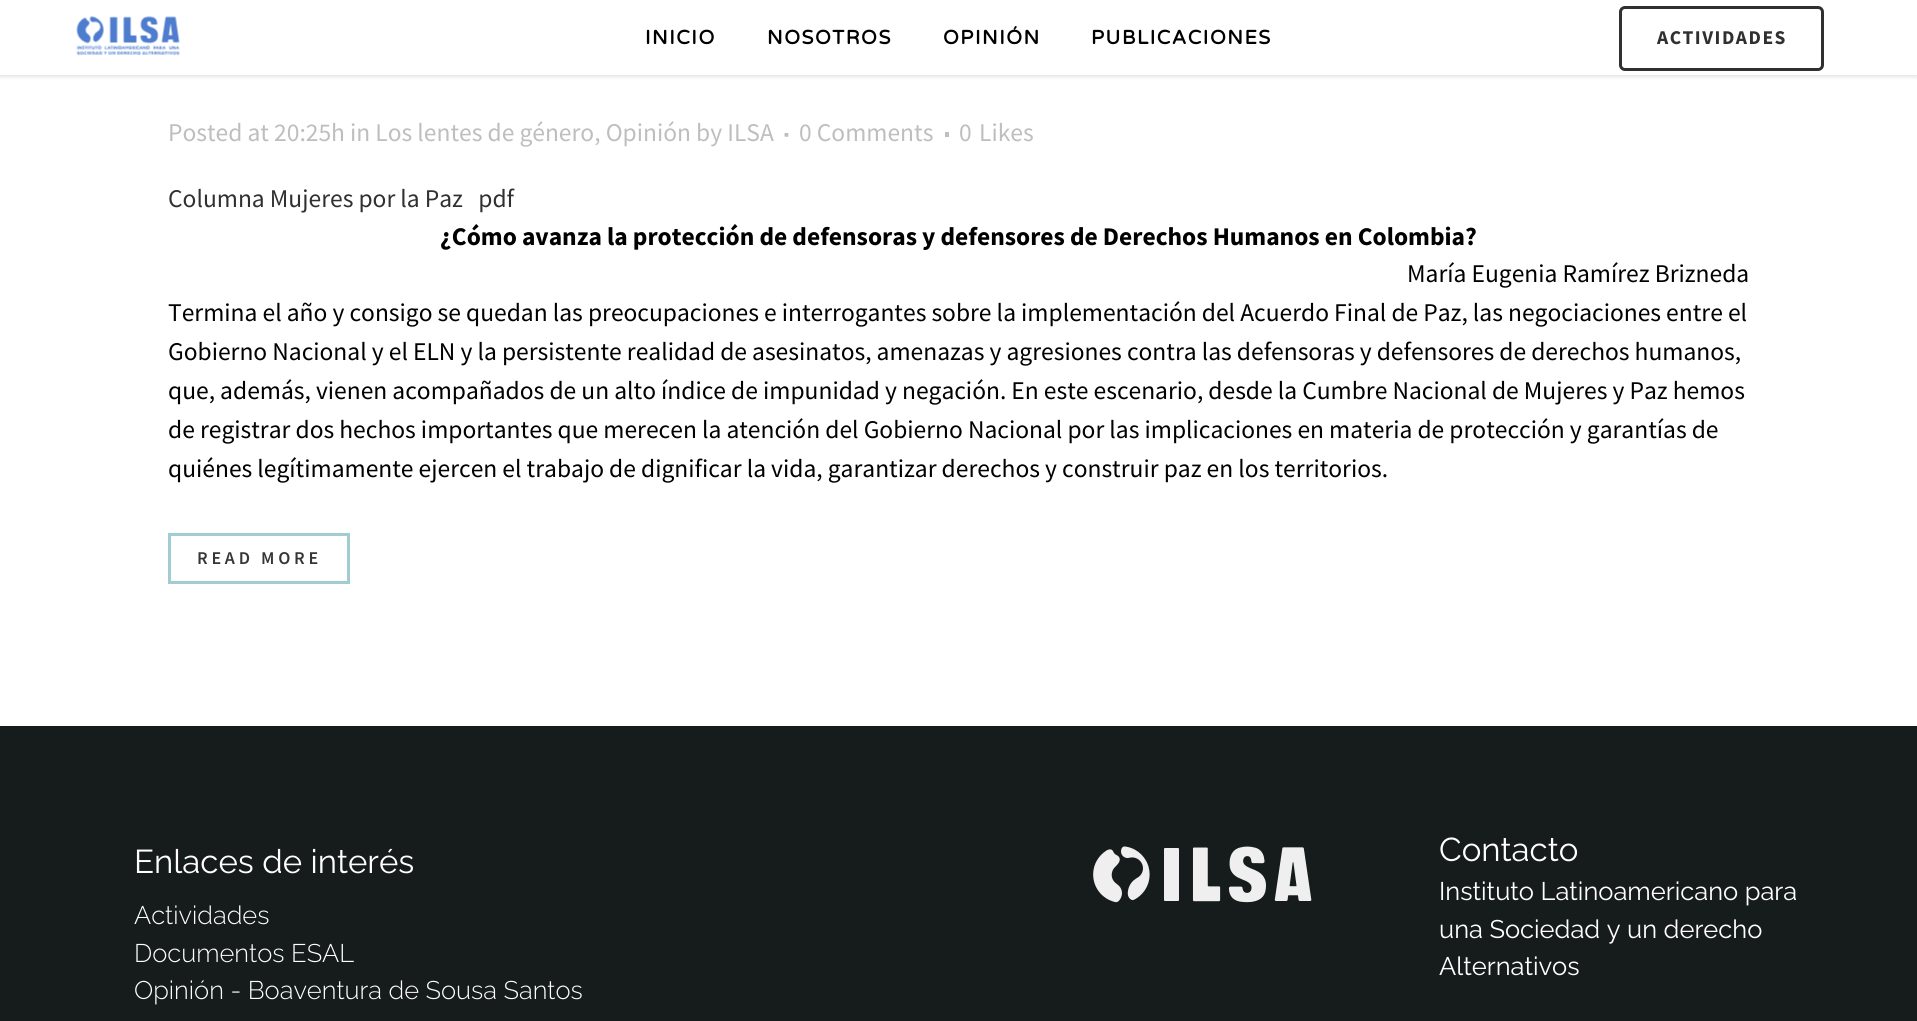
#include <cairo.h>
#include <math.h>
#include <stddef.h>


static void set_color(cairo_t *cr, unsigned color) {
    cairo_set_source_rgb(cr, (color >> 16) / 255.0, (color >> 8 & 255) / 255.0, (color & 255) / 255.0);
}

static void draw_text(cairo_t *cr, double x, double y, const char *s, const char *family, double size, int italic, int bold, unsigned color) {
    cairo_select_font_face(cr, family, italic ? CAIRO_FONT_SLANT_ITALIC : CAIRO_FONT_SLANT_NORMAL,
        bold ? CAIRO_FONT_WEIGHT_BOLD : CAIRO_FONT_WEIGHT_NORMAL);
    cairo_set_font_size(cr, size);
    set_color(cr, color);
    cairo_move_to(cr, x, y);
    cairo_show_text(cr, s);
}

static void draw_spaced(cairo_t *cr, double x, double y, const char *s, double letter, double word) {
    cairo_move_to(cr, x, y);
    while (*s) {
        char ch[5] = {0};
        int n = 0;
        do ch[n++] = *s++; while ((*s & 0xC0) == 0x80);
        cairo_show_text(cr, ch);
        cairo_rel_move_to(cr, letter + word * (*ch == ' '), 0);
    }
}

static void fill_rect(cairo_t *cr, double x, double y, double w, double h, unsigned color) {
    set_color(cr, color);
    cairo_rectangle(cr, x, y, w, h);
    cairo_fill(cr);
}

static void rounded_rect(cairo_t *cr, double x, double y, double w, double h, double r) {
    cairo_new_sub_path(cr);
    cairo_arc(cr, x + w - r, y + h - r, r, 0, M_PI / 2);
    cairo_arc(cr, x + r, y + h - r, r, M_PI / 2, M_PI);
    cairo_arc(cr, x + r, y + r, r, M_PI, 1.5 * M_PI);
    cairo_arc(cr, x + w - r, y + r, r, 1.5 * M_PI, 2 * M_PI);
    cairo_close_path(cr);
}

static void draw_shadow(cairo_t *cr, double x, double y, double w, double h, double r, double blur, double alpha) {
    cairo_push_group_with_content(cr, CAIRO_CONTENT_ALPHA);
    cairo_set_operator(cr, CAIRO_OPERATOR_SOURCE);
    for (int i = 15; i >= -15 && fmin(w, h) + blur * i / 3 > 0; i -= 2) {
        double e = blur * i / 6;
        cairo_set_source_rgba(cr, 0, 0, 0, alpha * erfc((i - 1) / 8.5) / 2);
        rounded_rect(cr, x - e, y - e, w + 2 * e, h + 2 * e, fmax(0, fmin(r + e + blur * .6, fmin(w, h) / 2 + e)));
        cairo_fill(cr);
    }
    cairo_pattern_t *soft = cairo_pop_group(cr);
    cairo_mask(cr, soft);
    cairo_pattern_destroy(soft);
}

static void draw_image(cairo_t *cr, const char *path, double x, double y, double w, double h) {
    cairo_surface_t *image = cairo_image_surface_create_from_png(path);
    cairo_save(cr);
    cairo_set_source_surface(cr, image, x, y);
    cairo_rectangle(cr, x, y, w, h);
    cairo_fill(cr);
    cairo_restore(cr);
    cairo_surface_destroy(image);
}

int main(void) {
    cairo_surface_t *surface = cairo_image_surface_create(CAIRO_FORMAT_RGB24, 1917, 1021);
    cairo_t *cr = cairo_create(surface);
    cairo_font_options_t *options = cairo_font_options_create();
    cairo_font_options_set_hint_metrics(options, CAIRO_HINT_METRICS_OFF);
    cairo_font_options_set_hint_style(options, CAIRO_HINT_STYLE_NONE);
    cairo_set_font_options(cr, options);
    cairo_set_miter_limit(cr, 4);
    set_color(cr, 0xFFFFFF);
    cairo_paint(cr);
    set_color(cr, 0x000000);
    draw_shadow(cr, 0, 2, 1917, 75, 0, 2, 0.11);
    fill_rect(cr, 0, 0, 1917, 75, 0xFFFFFF);
    draw_image(cr, "assets/img1.png", 76, 16, 104, 40);
    cairo_select_font_face(cr, "Varela Round", CAIRO_FONT_SLANT_NORMAL, CAIRO_FONT_WEIGHT_BOLD);
    cairo_set_font_size(cr, 19.5);
    set_color(cr, 0x000000);
    draw_spaced(cr, 645, 44, "INICIO", 1.5, 0);
    draw_spaced(cr, 767, 44, "NOSOTROS", 1.5, 0);
    draw_spaced(cr, 943, 44, "OPINIÓN", 1.5, 0);
    draw_spaced(cr, 1091, 44, "PUBLICACIONES", 1.5, 0);
    rounded_rect(cr, 1620.5, 7.5, 202, 62, 4.5);
    set_color(cr, 0x303030);
    cairo_set_line_width(cr, 3);
    cairo_stroke(cr);
    cairo_select_font_face(cr, "Source Sans Pro", CAIRO_FONT_SLANT_NORMAL, CAIRO_FONT_WEIGHT_BOLD);
    draw_spaced(cr, 1657, 44, "ACTIVIDADES", 1.5, 0);
    draw_text(cr, 168, 141, "Posted at 20:25h in Los lentes de género, Opinión by ILSA", "Source Sans Pro", 25.5, 0, 0, 0xBEBEBE);
    draw_image(cr, "assets/img2.png", 784, 132, 5, 5);
    draw_text(cr, 799, 141, "0 Comments", "Source Sans Pro", 25.5, 0, 0, 0xBEBEBE);
    fill_rect(cr, 945, 132, 4, 5, 0xBEBEBE);
    draw_text(cr, 959, 141, "0", "Source Sans Pro", 25.5, 0, 0, 0xBEBEBE);
    draw_text(cr, 979, 141, "Likes", "Source Sans Pro", 25.5, 0, 0, 0xBEBEBE);
    draw_text(cr, 168, 207, "Columna Mujeres por la Paz   pdf", "Source Sans Pro", 25.5, 0, 0, 0x303030);
    draw_text(cr, 440, 245, "¿Cómo avanza la protección de defensoras y defensores de Derechos Humanos en Colombia?", "Source Sans Pro", 25.5, 0, 1, 0x000000);
    draw_text(cr, 1407, 282, "María Eugenia Ramírez Brizneda", "Source Sans Pro", 25.5, 0, 0, 0x000000);
    draw_text(cr, 168, 321, "Termina el año y consigo se quedan las preocupaciones e interrogantes sobre la implementación del Acuerdo Final de Paz, las negociaciones entre el", "Source Sans Pro", 25.5, 0, 0, 0x000000);
    draw_text(cr, 168, 360, "Gobierno Nacional y el ELN y la persistente realidad de asesinatos, amenazas y agresiones contra las defensoras y defensores de derechos humanos,", "Source Sans Pro", 25.5, 0, 0, 0x000000);
    draw_text(cr, 168, 399, "que, además, vienen acompañados de un alto índice de impunidad y negación. En este escenario, desde la Cumbre Nacional de Mujeres y Paz hemos", "Source Sans Pro", 25.5, 0, 0, 0x000000);
    draw_text(cr, 168, 438, "de registrar dos hechos importantes que merecen la atención del Gobierno Nacional por las implicaciones en materia de protección y garantías de", "Source Sans Pro", 25.5, 0, 0, 0x000000);
    draw_text(cr, 168, 477, "quiénes legítimamente ejercen el trabajo de dignificar la vida, garantizar derechos y construir paz en los territorios.", "Source Sans Pro", 25.5, 0, 0, 0x000000);
    cairo_rectangle(cr, 169.5, 534.5, 179, 48);
    set_color(cr, 0xA1CCD1);
    cairo_stroke(cr);
    cairo_select_font_face(cr, "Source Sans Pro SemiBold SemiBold", CAIRO_FONT_SLANT_NORMAL, CAIRO_FONT_WEIGHT_NORMAL);
    cairo_set_font_size(cr, 18);
    set_color(cr, 0x363636);
    draw_spaced(cr, 197, 564, "READ MORE", 3.75, 0);
    fill_rect(cr, 0, 726, 1917, 295, 0x161C1B);
    draw_text(cr, 134, 873, "Enlaces de interés", "Raleway Thin", 33, 0, 0, 0xFFFFFF);
    draw_text(cr, 134, 924, "Actividades", "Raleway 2 Thin", 25.5, 0, 0, 0xFFFFFF);
    draw_text(cr, 134, 962, "Documentos ESAL", "Raleway 2 Thin", 25.5, 0, 0, 0xFFFFFF);
    draw_text(cr, 134, 999, "Opinión - Boaventura de Sousa Santos", "Raleway 2 Thin", 25.5, 0, 0, 0xFFFFFF);
    draw_image(cr, "assets/img3.png", 1093, 846, 219, 57);
    draw_text(cr, 1439, 861, "Contacto", "Raleway Thin", 33, 0, 0, 0xFFFFFF);
    draw_text(cr, 1439, 900, "Instituto Latinoamericano para", "Raleway Thin", 25.5, 0, 0, 0xFFFFFF);
    draw_text(cr, 1439, 938, "una Sociedad y un derecho", "Raleway Thin", 25.5, 0, 0, 0xFFFFFF);
    draw_text(cr, 1439, 975, "Alternativos", "Raleway Thin", 25.5, 0, 0, 0xFFFFFF);
    cairo_surface_write_to_png(surface, "output.png");
    cairo_font_options_destroy(options);
    cairo_destroy(cr);
    cairo_surface_destroy(surface);
    return 0;
}
